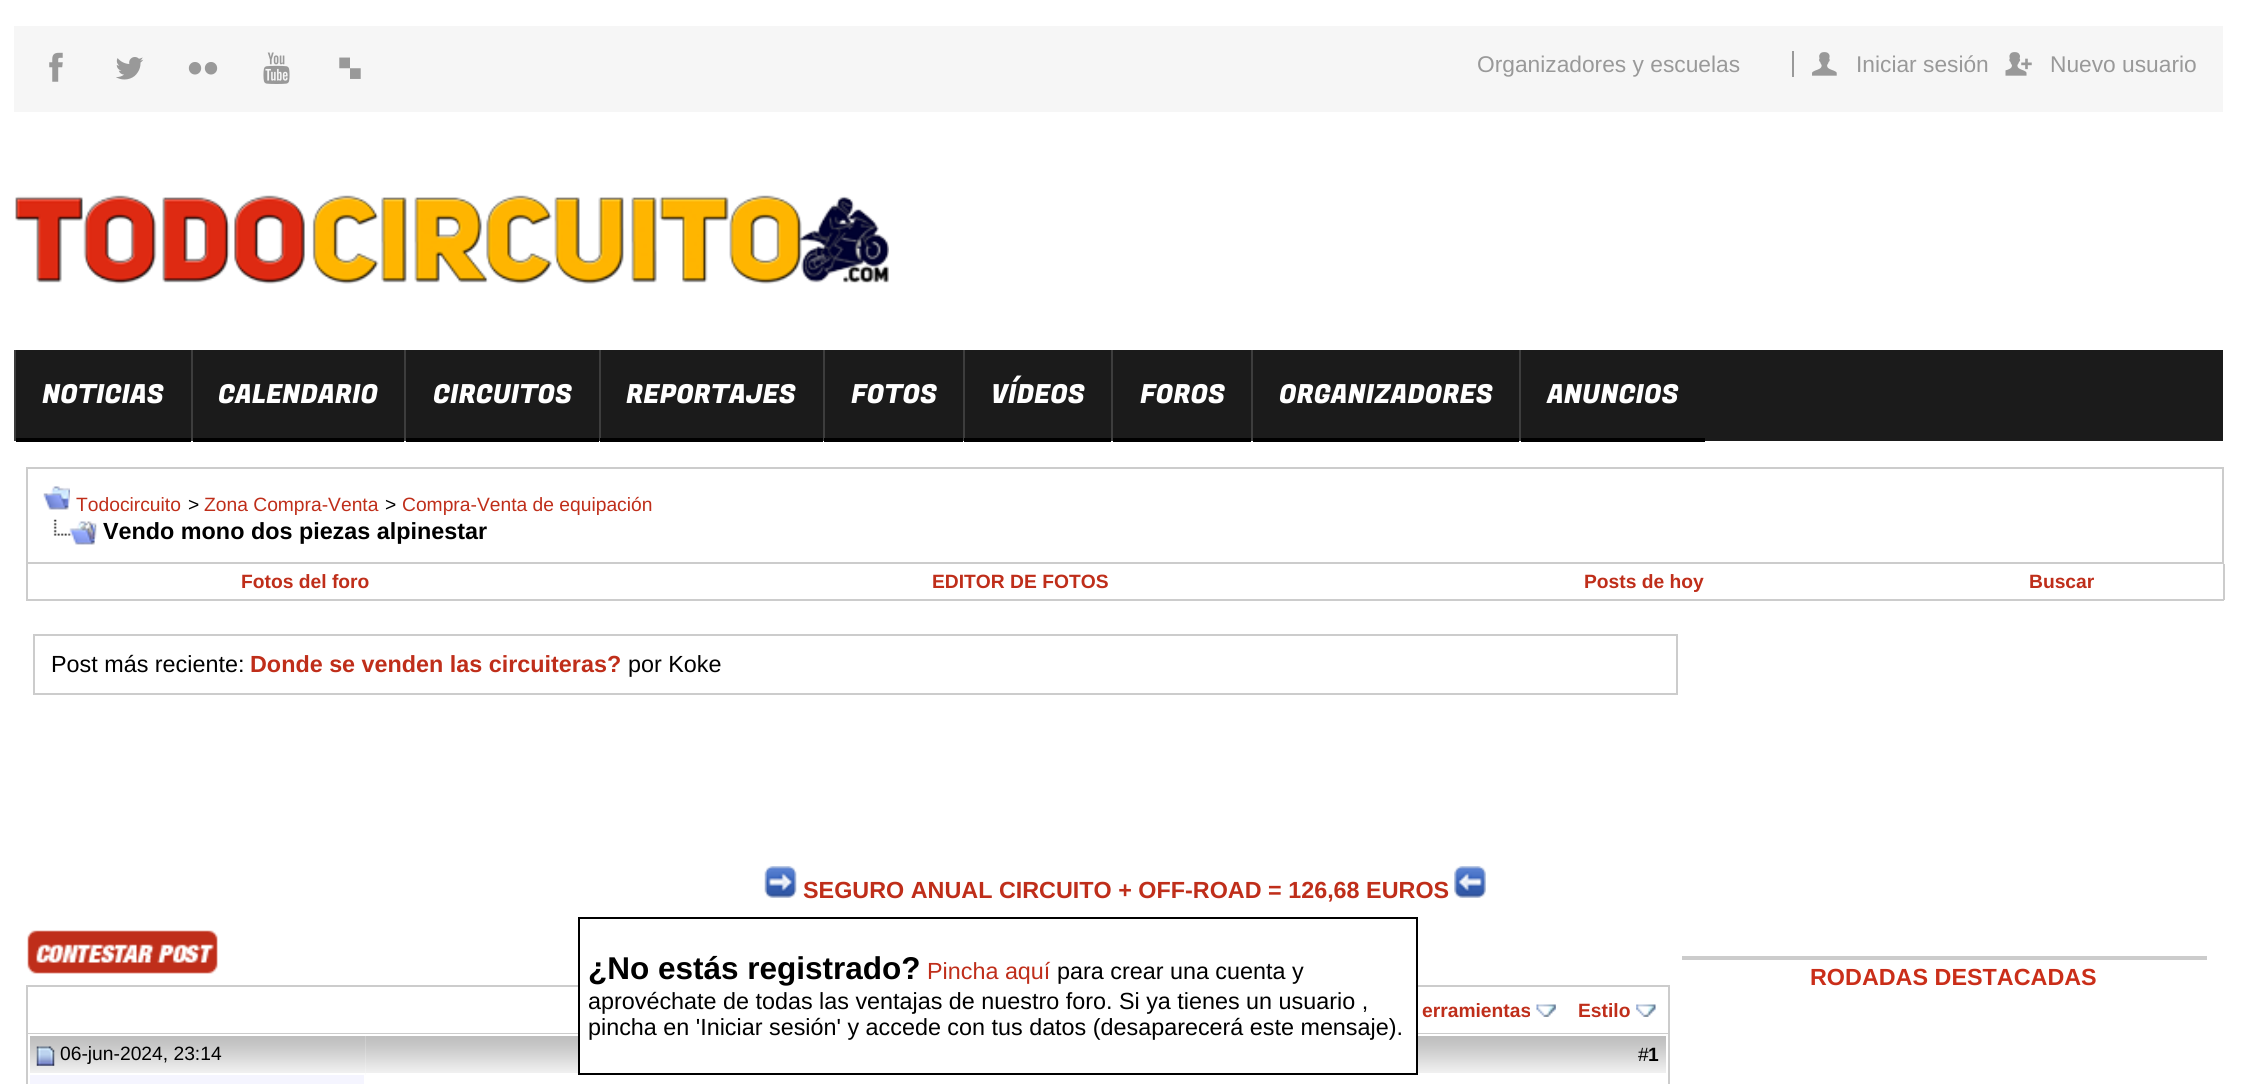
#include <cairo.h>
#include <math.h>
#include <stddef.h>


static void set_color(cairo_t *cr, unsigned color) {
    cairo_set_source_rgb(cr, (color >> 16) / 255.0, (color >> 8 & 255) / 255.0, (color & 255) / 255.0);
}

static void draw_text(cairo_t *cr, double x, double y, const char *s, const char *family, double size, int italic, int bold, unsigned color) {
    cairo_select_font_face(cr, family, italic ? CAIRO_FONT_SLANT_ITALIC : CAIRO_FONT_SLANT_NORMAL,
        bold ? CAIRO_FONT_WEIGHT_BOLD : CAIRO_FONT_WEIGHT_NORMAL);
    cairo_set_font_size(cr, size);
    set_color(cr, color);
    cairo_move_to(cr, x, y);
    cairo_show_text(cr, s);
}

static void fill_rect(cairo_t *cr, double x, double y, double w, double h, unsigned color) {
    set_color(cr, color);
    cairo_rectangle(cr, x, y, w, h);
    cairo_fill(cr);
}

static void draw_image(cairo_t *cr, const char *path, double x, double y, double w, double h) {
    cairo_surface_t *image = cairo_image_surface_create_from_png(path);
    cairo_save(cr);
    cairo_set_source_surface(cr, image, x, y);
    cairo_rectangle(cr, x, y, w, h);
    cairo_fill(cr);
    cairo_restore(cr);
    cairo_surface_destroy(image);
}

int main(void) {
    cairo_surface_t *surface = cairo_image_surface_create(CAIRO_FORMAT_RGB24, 2249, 1084);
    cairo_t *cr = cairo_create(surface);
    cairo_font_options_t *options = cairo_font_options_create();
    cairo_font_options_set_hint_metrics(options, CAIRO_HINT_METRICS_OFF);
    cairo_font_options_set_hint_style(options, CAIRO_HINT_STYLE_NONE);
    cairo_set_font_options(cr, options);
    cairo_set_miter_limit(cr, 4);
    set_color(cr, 0xFFFFFF);
    cairo_paint(cr);
    fill_rect(cr, 14, 26, 2209, 86, 0xF6F6F6);
    draw_image(cr, "assets/img1.png", 49, 52, 14, 30);
    draw_image(cr, "assets/img2.png", 116, 57, 28, 23);
    draw_image(cr, "assets/img3.png", 188, 62, 30, 13);
    draw_image(cr, "assets/img4.png", 263, 52, 27, 32);
    draw_image(cr, "assets/img5.png", 339, 57, 22, 22);
    draw_text(cr, 1477, 72, "Organizadores y escuelas", "Liberation Sans", 22.75, 0, 0, 0x999999);
    fill_rect(cr, 1792, 51, 2, 26, 0x999999);
    draw_image(cr, "assets/img6.png", 1812, 52, 25, 24);
    draw_text(cr, 1856, 72, "Iniciar sesión", "Liberation Sans", 22.75, 0, 0, 0x999999);
    draw_image(cr, "assets/img7.png", 2005, 52, 27, 24);
    draw_text(cr, 2050, 72, "Nuevo usuario", "Liberation Sans", 22.75, 0, 0, 0x999999);
    draw_image(cr, "assets/img8.png", 15, 195, 874, 89);
    fill_rect(cr, 16, 350, 2207, 91, 0x1B1B1B);
    fill_rect(cr, 14, 350, 2, 91, 0x3D3D3D);
    fill_rect(cr, 16, 438, 175, 4, 0x000000);
    draw_text(cr, 42, 403, "NOTICIAS", "Fugaz One", 26.25, 0, 0, 0xFFFFFF);
    fill_rect(cr, 191, 350, 2, 91, 0x3D3D3D);
    fill_rect(cr, 193, 438, 211, 4, 0x000000);
    draw_text(cr, 218, 403, "CALENDARIO", "Fugaz One", 26.25, 0, 0, 0xFFFFFF);
    fill_rect(cr, 404, 350, 2, 91, 0x3D3D3D);
    fill_rect(cr, 406, 438, 193, 4, 0x000000);
    draw_text(cr, 433, 403, "CIRCUITOS", "Fugaz One", 26.25, 0, 0, 0xFFFFFF);
    fill_rect(cr, 599, 350, 2, 91, 0x3D3D3D);
    fill_rect(cr, 600, 438, 223, 4, 0x000000);
    draw_text(cr, 626, 403, "REPORTAJES", "Fugaz One", 26.25, 0, 0, 0xFFFFFF);
    fill_rect(cr, 823, 350, 2, 91, 0x3D3D3D);
    fill_rect(cr, 824, 438, 139, 4, 0x000000);
    draw_text(cr, 851, 403, "FOTOS", "Fugaz One", 26.25, 0, 0, 0xFFFFFF);
    fill_rect(cr, 963, 350, 2, 91, 0x3D3D3D);
    fill_rect(cr, 964, 438, 147, 4, 0x000000);
    draw_text(cr, 991, 403, "VÍDEOS", "Fugaz One", 26.25, 0, 0, 0xFFFFFF);
    fill_rect(cr, 1111, 350, 2, 91, 0x3D3D3D);
    fill_rect(cr, 1113, 438, 138, 4, 0x000000);
    draw_text(cr, 1140, 403, "FOROS", "Fugaz One", 26.25, 0, 0, 0xFFFFFF);
    fill_rect(cr, 1251, 350, 2, 91, 0x3D3D3D);
    fill_rect(cr, 1253, 438, 266, 4, 0x000000);
    draw_text(cr, 1279, 403, "ORGANIZADORES", "Fugaz One", 26.25, 0, 0, 0xFFFFFF);
    fill_rect(cr, 1519, 350, 2, 91, 0x3D3D3D);
    fill_rect(cr, 1521, 438, 184, 4, 0x000000);
    draw_text(cr, 1547, 403, "ANUNCIOS", "Fugaz One", 26.25, 0, 0, 0xFFFFFF);
    cairo_rectangle(cr, 27, 468, 2196, 95);
    set_color(cr, 0xCCCCCC);
    cairo_stroke(cr);
    draw_image(cr, "assets/img9.png", 43, 486, 27, 24);
    draw_text(cr, 76, 511, "Todocircuito", "Liberation Sans", 19.25, 0, 0, 0xBF2E1A);
    draw_text(cr, 188, 511, ">", "Liberation Sans", 19.25, 0, 0, 0x000000);
    draw_text(cr, 204, 511, "Zona Compra-Venta", "Liberation Sans", 19.25, 0, 0, 0xBF2E1A);
    draw_text(cr, 385, 511, ">", "Liberation Sans", 19.25, 0, 0, 0x000000);
    draw_text(cr, 402, 511, "Compra-Venta de equipación", "Liberation Sans", 19.25, 0, 0, 0xBF2E1A);
    draw_image(cr, "assets/img10.png", 53, 519, 44, 26);
    draw_text(cr, 103, 539, "Vendo mono dos piezas alpinestar", "Liberation Sans", 23.35, 0, 1, 0x000000);
    fill_rect(cr, 2223, 564, 2, 36, 0xCCCCCC);
    fill_rect(cr, 26, 599, 2198, 2, 0xCCCCCC);
    fill_rect(cr, 26, 564, 2, 36, 0xCCCCCC);
    draw_text(cr, 241, 588, "Fotos del foro", "Liberation Sans", 19.25, 0, 1, 0xBF2E1A);
    draw_text(cr, 932, 588, "EDITOR DE FOTOS", "Liberation Sans", 19.25, 0, 1, 0xBF2E1A);
    draw_text(cr, 1584, 588, "Posts de hoy", "Liberation Sans", 19.25, 0, 1, 0xBF2E1A);
    draw_text(cr, 2029, 588, "Buscar", "Liberation Sans", 19.25, 0, 1, 0xBF2E1A);
    cairo_rectangle(cr, 34, 635, 1643, 59);
    set_color(cr, 0xCCCCCC);
    cairo_stroke(cr);
    draw_text(cr, 51, 672, "Post más reciente:", "Liberation Sans", 23.35, 0, 0, 0x000000);
    draw_text(cr, 250, 672, "Donde se venden las circuiteras?", "Liberation Sans", 23.35, 0, 1, 0xBF2E1A);
    draw_text(cr, 628, 672, "por Koke", "Liberation Sans", 23.35, 0, 0, 0x000000);
    draw_image(cr, "assets/img11.png", 764, 866, 33, 32);
    draw_text(cr, 803, 898, "SEGURO ANUAL CIRCUITO + OFF-ROAD = 126,68 EUROS", "Liberation Sans", 23.35, 0, 1, 0xBF2E1A);
    draw_image(cr, "assets/img12.png", 1454, 866, 32, 32);
    fill_rect(cr, 1682, 956, 525, 4, 0xCCCCCC);
    draw_text(cr, 1810, 985, "RODADAS DESTACADAS", "Liberation Sans", 23.35, 0, 1, 0xCA2E19);
    draw_image(cr, "assets/img13.png", 27, 930, 191, 44);
    fill_rect(cr, 26, 985, 1644, 2, 0xCCCCCC);
    fill_rect(cr, 1668, 985, 2, 48, 0xCCCCCC);
    fill_rect(cr, 26, 985, 2, 48, 0xCCCCCC);
    draw_text(cr, 1422, 1017, "erramientas", "Liberation Sans", 19.25, 0, 1, 0xBF2E1A);
    draw_image(cr, "assets/img14.png", 1536, 1004, 20, 13);
    draw_text(cr, 1578, 1017, "Estilo", "Liberation Sans", 19.25, 0, 1, 0xBF2E1A);
    draw_image(cr, "assets/img15.png", 1636, 1004, 20, 13);
    cairo_rectangle(cr, 27, 1034, 1642, 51);
    set_color(cr, 0xCCCCCC);
    cairo_stroke(cr);
    fill_rect(cr, 28, 1034, 1640, 1, 0xFFFFFF);
    draw_image(cr, "assets/img16.png", 30, 1036, 336, 37);
    draw_image(cr, "assets/img17.png", 36, 1046, 19, 20);
    draw_text(cr, 60, 1060, "06-jun-2024, 23:14", "Liberation Sans", 19.25, 0, 0, 0x000000);
    draw_image(cr, "assets/img18.png", 365, 1036, 1301, 39);
    fill_rect(cr, 366, 1073, 1302, 2, 0xFFFFFF);
    draw_text(cr, 1638, 1061, "#", "Liberation Sans", 19.25, 0, 0, 0x000000);
    draw_text(cr, 1648, 1061, "1", "Liberation Sans", 19.25, 0, 1, 0x000000);
    fill_rect(cr, 30, 1075, 334, 9, 0xF5F5FF);
    fill_rect(cr, 580, 985, 836, 88, 0xFFFFFF);
    cairo_rectangle(cr, 579, 918, 838, 156);
    set_color(cr, 0x000000);
    cairo_stroke(cr);
    draw_text(cr, 588, 979, "¿No estás registrado?", "Liberation Sans", 31.5, 0, 1, 0x000000);
    draw_text(cr, 927, 979, "Pincha aquí", "Liberation Sans", 23.35, 0, 0, 0xBF2E1A);
    draw_text(cr, 1057, 979, "para crear una cuenta y", "Liberation Sans", 23.35, 0, 0, 0x000000);
    draw_text(cr, 588, 1009, "aprovéchate de todas las ventajas de nuestro foro. Si ya tienes un usuario ,", "Liberation Sans", 23.35, 0, 0, 0x000000);
    draw_text(cr, 588, 1035, "pincha en 'Iniciar sesión' y accede con tus datos (desaparecerá este mensaje).", "Liberation Sans", 23.35, 0, 0, 0x000000);
    cairo_surface_write_to_png(surface, "output.png");
    cairo_font_options_destroy(options);
    cairo_destroy(cr);
    cairo_surface_destroy(surface);
    return 0;
}
